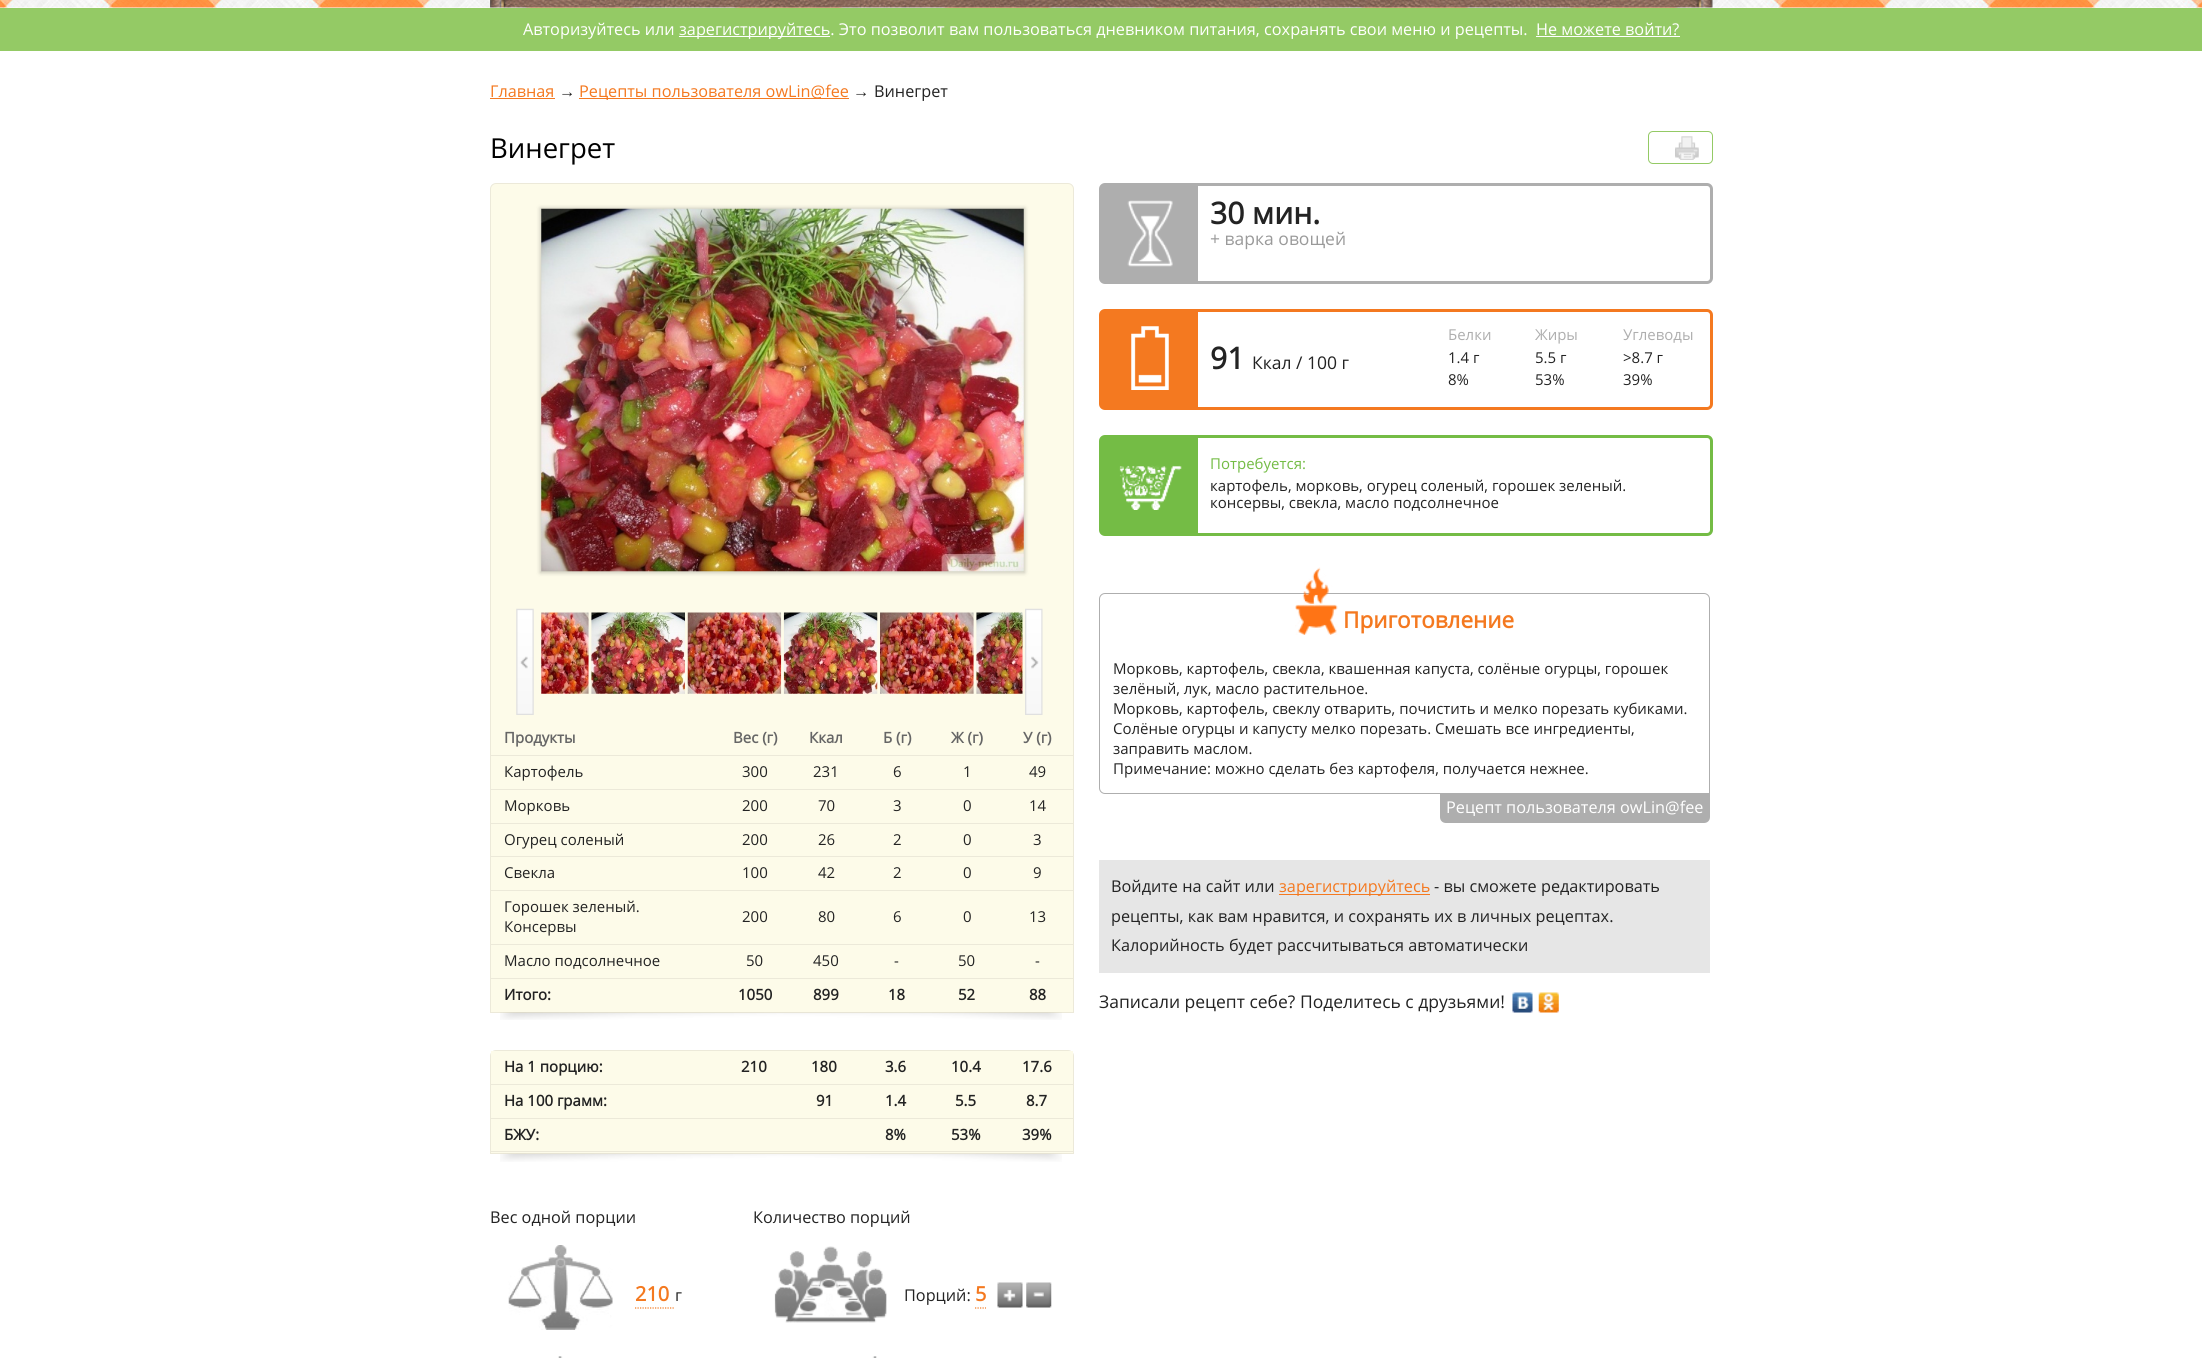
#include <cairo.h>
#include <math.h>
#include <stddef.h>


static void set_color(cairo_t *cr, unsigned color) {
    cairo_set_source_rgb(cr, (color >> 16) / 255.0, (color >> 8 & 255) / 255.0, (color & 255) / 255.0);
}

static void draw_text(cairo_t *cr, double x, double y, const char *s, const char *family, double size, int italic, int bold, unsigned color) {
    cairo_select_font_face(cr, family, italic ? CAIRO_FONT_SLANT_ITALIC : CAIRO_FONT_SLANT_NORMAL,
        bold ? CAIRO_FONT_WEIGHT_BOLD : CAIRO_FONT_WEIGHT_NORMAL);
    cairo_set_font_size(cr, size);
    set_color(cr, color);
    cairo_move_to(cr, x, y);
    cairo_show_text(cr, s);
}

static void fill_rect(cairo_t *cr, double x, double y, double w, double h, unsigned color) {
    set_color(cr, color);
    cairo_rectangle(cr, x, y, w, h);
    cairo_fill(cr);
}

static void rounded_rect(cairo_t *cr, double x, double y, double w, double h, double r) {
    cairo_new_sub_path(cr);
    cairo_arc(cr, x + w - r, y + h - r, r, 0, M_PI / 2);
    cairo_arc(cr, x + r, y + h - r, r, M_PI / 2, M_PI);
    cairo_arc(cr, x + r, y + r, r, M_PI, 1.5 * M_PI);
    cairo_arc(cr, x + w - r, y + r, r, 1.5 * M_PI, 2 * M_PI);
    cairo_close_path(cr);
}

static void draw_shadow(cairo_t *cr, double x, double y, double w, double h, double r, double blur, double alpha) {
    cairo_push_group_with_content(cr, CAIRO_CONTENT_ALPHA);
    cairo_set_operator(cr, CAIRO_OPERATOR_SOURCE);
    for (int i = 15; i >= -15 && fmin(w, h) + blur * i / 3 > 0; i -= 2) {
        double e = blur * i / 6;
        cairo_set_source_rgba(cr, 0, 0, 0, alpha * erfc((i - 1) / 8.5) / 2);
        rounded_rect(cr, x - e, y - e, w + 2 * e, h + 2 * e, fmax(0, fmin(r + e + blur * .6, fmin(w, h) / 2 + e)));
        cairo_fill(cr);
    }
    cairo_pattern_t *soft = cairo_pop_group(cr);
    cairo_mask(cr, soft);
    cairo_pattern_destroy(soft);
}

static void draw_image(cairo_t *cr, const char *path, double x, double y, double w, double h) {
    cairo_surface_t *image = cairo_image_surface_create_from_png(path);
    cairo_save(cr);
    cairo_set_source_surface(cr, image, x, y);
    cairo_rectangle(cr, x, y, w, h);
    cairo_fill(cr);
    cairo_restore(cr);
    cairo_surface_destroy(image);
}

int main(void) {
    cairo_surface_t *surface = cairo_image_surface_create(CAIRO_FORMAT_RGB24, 2202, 1358);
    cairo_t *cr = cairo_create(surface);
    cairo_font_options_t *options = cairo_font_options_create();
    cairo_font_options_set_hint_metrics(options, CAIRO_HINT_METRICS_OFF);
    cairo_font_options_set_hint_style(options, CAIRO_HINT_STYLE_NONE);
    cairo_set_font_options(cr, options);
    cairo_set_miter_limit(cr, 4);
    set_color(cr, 0xFFFFFF);
    cairo_paint(cr);
    draw_image(cr, "assets/img1.png", 0, 0, 2202, 8);
    draw_image(cr, "assets/img2.png", 490, 0, 1223, 8);
    fill_rect(cr, 0, 8, 2202, 43, 0x94CA65);
    draw_text(cr, 523, 35, "Авторизуйтесь или", "Open Sans", 16.25, 0, 0, 0xFFFFFF);
    fill_rect(cr, 679, 36, 151, 1, 0xFFFFFF);
    draw_text(cr, 679, 35, "зарегистрируйтесь. Это позволит вам пользоваться дневником питания, сохранять свои меню и рецепты.", "Open Sans", 16.25, 0, 0, 0xFFFFFF);
    draw_text(cr, 1536, 35, "Не можете войти?", "Open Sans", 16.25, 0, 0, 0xFFFFFF);
    fill_rect(cr, 1536, 36, 144, 1, 0xFFFFFF);
    draw_text(cr, 490, 97, "Главная", "Open Sans", 16.25, 0, 0, 0xF47920);
    fill_rect(cr, 490, 98, 65, 1, 0xF47920);
    draw_text(cr, 559, 97, "→", "Liberation Sans", 16.25, 0, 0, 0x232323);
    fill_rect(cr, 579, 98, 270, 1, 0xF47920);
    draw_text(cr, 579, 97, "Рецепты пользователя owLin@fee", "Open Sans", 16.25, 0, 0, 0xF47920);
    draw_text(cr, 853, 97, "→", "Liberation Sans", 16.25, 0, 0, 0x232323);
    draw_text(cr, 874, 97, "Винегрет", "Open Sans", 16.25, 0, 0, 0x232323);
    draw_text(cr, 490, 158, "Винегрет", "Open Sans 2", 27.5, 0, 0, 0x000000);
    rounded_rect(cr, 1648.5, 131.5, 64, 32, 4.5);
    set_color(cr, 0x94CA65);
    cairo_set_line_width(cr, 1);
    cairo_stroke(cr);
    draw_image(cr, "assets/img3.png", 1675, 136, 24, 24);
    set_color(cr, 0xFDFBE9);
    cairo_new_path(cr);
    cairo_move_to(cr, 496, 183.5);
    cairo_line_to(cr, 1068, 183.5);
    cairo_curve_to(cr, 1071, 183.5, 1073.5, 186, 1073.5, 189);
    cairo_line_to(cr, 1073.5, 1012.5);
    cairo_line_to(cr, 490.5, 1012.5);
    cairo_line_to(cr, 490.5, 189);
    cairo_curve_to(cr, 490.5, 186, 493, 183.5, 496, 183.5);
    cairo_close_path(cr);
    cairo_fill_preserve(cr);
    set_color(cr, 0xECE9D9);
    cairo_stroke(cr);
    set_color(cr, 0x000000);
    draw_shadow(cr, 540, 208, 485, 365, 0, 2, 0.2);
    draw_image(cr, "assets/img4.png", 541, 208, 483, 364);
    draw_image(cr, "assets/img5.png", 516, 608, 18, 107);
    draw_image(cr, "assets/img6.png", 541, 612, 48, 82);
    draw_image(cr, "assets/img7.png", 591, 612, 94, 82);
    draw_image(cr, "assets/img8.png", 687, 612, 95, 82);
    draw_image(cr, "assets/img9.png", 783, 612, 95, 82);
    draw_image(cr, "assets/img10.png", 880, 612, 94, 82);
    draw_image(cr, "assets/img11.png", 976, 612, 47, 82);
    draw_image(cr, "assets/img12.png", 1025, 608, 18, 107);
    fill_rect(cr, 491, 755, 583, 1, 0xECE9D9);
    draw_text(cr, 504, 743, "Продукты", "Open Sans", 15, 0, 1, 0x666666);
    draw_text(cr, 733, 743, "Вес (г)", "Open Sans", 15, 0, 1, 0x666666);
    draw_text(cr, 809, 743, "Ккал", "Open Sans", 15, 0, 1, 0x666666);
    draw_text(cr, 883, 743, "Б (г)", "Open Sans", 15, 0, 1, 0x666666);
    draw_text(cr, 951, 743, "Ж (г)", "Open Sans", 15, 0, 1, 0x666666);
    draw_text(cr, 1023, 743, "У (г)", "Open Sans", 15, 0, 1, 0x666666);
    draw_text(cr, 504, 777, "Картофель", "Open Sans", 15, 0, 0, 0x232323);
    draw_text(cr, 742, 777, "300", "Open Sans", 15, 0, 0, 0x232323);
    draw_text(cr, 813, 777, "231", "Open Sans", 15, 0, 0, 0x232323);
    draw_text(cr, 893, 777, "6", "Open Sans", 15, 0, 0, 0x232323);
    draw_text(cr, 963, 777, "1", "Open Sans", 15, 0, 0, 0x232323);
    fill_rect(cr, 491, 789, 583, 1, 0xECE9D9);
    draw_text(cr, 1029, 777, "49", "Open Sans", 15, 0, 0, 0x232323);
    draw_text(cr, 504, 811, "Морковь", "Open Sans", 15, 0, 0, 0x232323);
    draw_text(cr, 742, 811, "200", "Open Sans", 15, 0, 0, 0x232323);
    draw_text(cr, 818, 811, "70", "Open Sans", 15, 0, 0, 0x232323);
    draw_text(cr, 893, 811, "3", "Open Sans", 15, 0, 0, 0x232323);
    draw_text(cr, 963, 811, "0", "Open Sans", 15, 0, 0, 0x232323);
    fill_rect(cr, 491, 823, 583, 1, 0xECE9D9);
    draw_text(cr, 1029, 811, "14", "Open Sans", 15, 0, 0, 0x232323);
    draw_text(cr, 504, 845, "Огурец соленый", "Open Sans", 15, 0, 0, 0x232323);
    draw_text(cr, 742, 845, "200", "Open Sans", 15, 0, 0, 0x232323);
    draw_text(cr, 818, 845, "26", "Open Sans", 15, 0, 0, 0x232323);
    draw_text(cr, 893, 845, "2", "Open Sans", 15, 0, 0, 0x232323);
    draw_text(cr, 963, 845, "0", "Open Sans", 15, 0, 0, 0x232323);
    fill_rect(cr, 491, 856, 583, 1, 0xECE9D9);
    draw_text(cr, 1033, 845, "3", "Open Sans", 15, 0, 0, 0x232323);
    draw_text(cr, 504, 878, "Свекла", "Open Sans", 15, 0, 0, 0x232323);
    draw_text(cr, 742, 878, "100", "Open Sans", 15, 0, 0, 0x232323);
    draw_text(cr, 818, 878, "42", "Open Sans", 15, 0, 0, 0x232323);
    draw_text(cr, 893, 878, "2", "Open Sans", 15, 0, 0, 0x232323);
    draw_text(cr, 963, 878, "0", "Open Sans", 15, 0, 0, 0x232323);
    fill_rect(cr, 491, 890, 583, 1, 0xECE9D9);
    draw_text(cr, 1033, 878, "9", "Open Sans", 15, 0, 0, 0x232323);
    draw_text(cr, 504, 912, "Горошек зеленый.", "Open Sans", 15, 0, 0, 0x232323);
    draw_text(cr, 504, 932, "Консервы", "Open Sans", 15, 0, 0, 0x232323);
    draw_text(cr, 742, 922, "200", "Open Sans", 15, 0, 0, 0x232323);
    draw_text(cr, 818, 922, "80", "Open Sans", 15, 0, 0, 0x232323);
    draw_text(cr, 893, 922, "6", "Open Sans", 15, 0, 0, 0x232323);
    draw_text(cr, 963, 922, "0", "Open Sans", 15, 0, 0, 0x232323);
    fill_rect(cr, 491, 944, 583, 1, 0xECE9D9);
    draw_text(cr, 1029, 922, "13", "Open Sans", 15, 0, 0, 0x232323);
    draw_text(cr, 504, 966, "Масло подсолнечное", "Open Sans", 15, 0, 0, 0x232323);
    draw_text(cr, 746, 966, "50", "Open Sans", 15, 0, 0, 0x232323);
    draw_text(cr, 813, 966, "450", "Open Sans", 15, 0, 0, 0x232323);
    draw_text(cr, 894, 966, "-", "Open Sans", 15, 0, 0, 0x232323);
    draw_text(cr, 958, 966, "50", "Open Sans", 15, 0, 0, 0x232323);
    fill_rect(cr, 491, 978, 583, 1, 0xECE9D9);
    draw_text(cr, 1035, 966, "-", "Open Sans", 15, 0, 0, 0x232323);
    draw_text(cr, 504, 1000, "Итого:", "Open Sans", 15, 0, 1, 0x232323);
    draw_text(cr, 738, 1000, "1050", "Open Sans", 15, 0, 1, 0x232323);
    draw_text(cr, 813, 1000, "899", "Open Sans", 15, 0, 1, 0x232323);
    draw_text(cr, 888, 1000, "18", "Open Sans", 15, 0, 1, 0x232323);
    draw_text(cr, 958, 1000, "52", "Open Sans", 15, 0, 1, 0x232323);
    draw_text(cr, 1029, 1000, "88", "Open Sans", 15, 0, 1, 0x232323);
    draw_image(cr, "assets/img13.png", 500, 1012, 562, 8);
    cairo_new_path(cr);
    cairo_move_to(cr, 496, 1050.5);
    cairo_line_to(cr, 1068, 1050.5);
    cairo_curve_to(cr, 1071, 1050.5, 1073.5, 1053, 1073.5, 1056);
    cairo_line_to(cr, 1073.5, 1153.5);
    cairo_line_to(cr, 490.5, 1153.5);
    cairo_line_to(cr, 490.5, 1056);
    cairo_curve_to(cr, 490.5, 1053, 493, 1050.5, 496, 1050.5);
    cairo_close_path(cr);
    set_color(cr, 0xECE9D9);
    cairo_stroke(cr);
    fill_rect(cr, 491, 1051, 582, 102, 0xFDFBE9);
    draw_text(cr, 504, 1072, "На 1 порцию:", "Open Sans", 15, 0, 1, 0x232323);
    draw_text(cr, 741, 1072, "210", "Open Sans", 15, 0, 1, 0x232323);
    draw_text(cr, 811, 1072, "180", "Open Sans", 15, 0, 1, 0x232323);
    draw_text(cr, 885, 1072, "3.6", "Open Sans", 15, 0, 1, 0x232323);
    draw_text(cr, 951, 1072, "10.4", "Open Sans", 15, 0, 1, 0x232323);
    fill_rect(cr, 491, 1084, 583, 1, 0xECE9D9);
    draw_text(cr, 1022, 1072, "17.6", "Open Sans", 15, 0, 1, 0x232323);
    draw_text(cr, 504, 1106, "На 100 грамм:", "Open Sans", 15, 0, 1, 0x232323);
    draw_text(cr, 816, 1106, "91", "Open Sans", 15, 0, 1, 0x232323);
    draw_text(cr, 885, 1106, "1.4", "Open Sans", 15, 0, 1, 0x232323);
    draw_text(cr, 955, 1106, "5.5", "Open Sans", 15, 0, 1, 0x232323);
    fill_rect(cr, 491, 1118, 583, 1, 0xECE9D9);
    draw_text(cr, 1026, 1106, "8.7", "Open Sans", 15, 0, 1, 0x232323);
    draw_text(cr, 504, 1140, "БЖУ:", "Open Sans", 15, 0, 1, 0x232323);
    draw_text(cr, 885, 1140, "8%", "Open Sans", 15, 0, 1, 0x232323);
    draw_text(cr, 951, 1140, "53%", "Open Sans", 15, 0, 1, 0x232323);
    fill_rect(cr, 491, 1151, 583, 1, 0xECE9D9);
    draw_text(cr, 1022, 1140, "39%", "Open Sans", 15, 0, 1, 0x232323);
    draw_image(cr, "assets/img14.png", 500, 1153, 562, 9);
    draw_text(cr, 490, 1223, "Вес одной порции", "Open Sans", 16.25, 0, 0, 0x232323);
    draw_text(cr, 753, 1223, "Количество порций", "Open Sans", 16.25, 0, 0, 0x232323);
    draw_image(cr, "assets/img15.png", 508, 1245, 105, 85);
    draw_text(cr, 635, 1301, "210", "Open Sans", 20, 0, 1, 0xF47920);
    cairo_new_path(cr);
    cairo_move_to(cr, 635, 1308);
    cairo_line_to(cr, 675, 1308);
    cairo_set_line_width(cr, 1.2);
    cairo_set_dash(cr, (double[]){1.25, 1.25}, 2, 0);
    cairo_stroke(cr);
    draw_text(cr, 675, 1301, "г", "Open Sans", 16.25, 0, 0, 0x232323);
    draw_image(cr, "assets/img16.png", 774, 1246, 113, 77);
    draw_text(cr, 904, 1301, "Порций:", "Open Sans", 16.25, 0, 0, 0x232323);
    draw_text(cr, 975, 1301, "5", "Open Sans", 20, 0, 1, 0xF47920);
    cairo_new_path(cr);
    cairo_move_to(cr, 975, 1308);
    cairo_line_to(cr, 986, 1308);
    cairo_stroke(cr);
    draw_image(cr, "assets/img17.png", 997, 1282, 26, 26);
    draw_image(cr, "assets/img18.png", 1026, 1282, 26, 26);
    draw_image(cr, "assets/img19.png", 558, 1356, 319, 2);
    rounded_rect(cr, 1100.5, 184.5, 611, 98, 4.5);
    set_color(cr, 0xAEAEAE);
    cairo_set_line_width(cr, 3);
    cairo_set_dash(cr, NULL, 0, 0);
    cairo_stroke(cr);
    fill_rect(cr, 1102, 186, 96, 95, 0xAEAEAE);
    draw_image(cr, "assets/img20.png", 1127, 200, 46, 67);
    draw_text(cr, 1210, 224, "30 мин.", "Open Sans", 30, 0, 1, 0x232323);
    draw_text(cr, 1210, 245, "+ варка овощей", "Open Sans", 17.5, 0, 0, 0x9A9A9A);
    rounded_rect(cr, 1100.5, 310.5, 611, 98, 4.5);
    set_color(cr, 0xF47920);
    cairo_stroke(cr);
    fill_rect(cr, 1102, 312, 96, 95, 0xF47920);
    draw_image(cr, "assets/img21.png", 1131, 326, 38, 64);
    draw_text(cr, 1210, 369, "91", "Open Sans", 30, 0, 1, 0x232323);
    draw_text(cr, 1252, 369, "Ккал / 100 г", "Open Sans", 17.5, 0, 0, 0x232323);
    draw_text(cr, 1448, 340, "Белки", "Open Sans", 15, 0, 0, 0xAEAEAE);
    draw_text(cr, 1535, 340, "Жиры", "Open Sans", 15, 0, 0, 0xAEAEAE);
    draw_text(cr, 1623, 340, "Углеводы", "Open Sans", 15, 0, 0, 0xAEAEAE);
    draw_text(cr, 1448, 363, "1.4 г", "Open Sans", 15, 0, 0, 0x232323);
    draw_text(cr, 1535, 363, "5.5 г", "Open Sans", 15, 0, 0, 0x232323);
    draw_text(cr, 1623, 363, ">8.7 г", "Open Sans", 15, 0, 0, 0x232323);
    draw_text(cr, 1448, 385, "8%", "Open Sans", 15, 0, 0, 0x232323);
    draw_text(cr, 1535, 385, "53%", "Open Sans", 15, 0, 0, 0x232323);
    draw_text(cr, 1623, 385, "39%", "Open Sans", 15, 0, 0, 0x232323);
    rounded_rect(cr, 1100.5, 436.5, 611, 98, 4.5);
    set_color(cr, 0x74BC45);
    cairo_stroke(cr);
    fill_rect(cr, 1102, 438, 96, 95, 0x74BC45);
    draw_image(cr, "assets/img22.png", 1119, 465, 63, 45);
    draw_text(cr, 1210, 469, "Потребуется:", "Open Sans", 15, 0, 0, 0x74BC45);
    draw_text(cr, 1210, 491, "картофель, морковь, огурец соленый, горошек зеленый.", "Open Sans", 15, 0, 0, 0x232323);
    draw_text(cr, 1210, 508, "консервы, свекла, масло подсолнечное", "Open Sans", 15, 0, 0, 0x232323);
    cairo_new_path(cr);
    cairo_move_to(cr, 1105, 593.5);
    cairo_line_to(cr, 1704, 593.5);
    cairo_curve_to(cr, 1707, 593.5, 1709.5, 596, 1709.5, 599);
    cairo_line_to(cr, 1709.5, 793.5);
    cairo_line_to(cr, 1105, 793.5);
    cairo_curve_to(cr, 1102, 793.5, 1099.5, 791, 1099.5, 788);
    cairo_line_to(cr, 1099.5, 599);
    cairo_curve_to(cr, 1099.5, 596, 1102, 593.5, 1105, 593.5);
    cairo_close_path(cr);
    set_color(cr, 0xAEAEAE);
    cairo_set_line_width(cr, 1);
    cairo_stroke(cr);
    draw_image(cr, "assets/img23.png", 1295, 567, 43, 68);
    draw_text(cr, 1343, 628, "Приготовление", "Open Sans", 22.5, 0, 1, 0xF47920);
    draw_text(cr, 1113, 674, "Морковь, картофель, свекла, квашенная капуста, солёные огурцы, горошек", "Open Sans", 15, 0, 0, 0x232323);
    draw_text(cr, 1113, 694, "зелёный, лук, масло растительное.", "Open Sans", 15, 0, 0, 0x232323);
    draw_text(cr, 1113, 714, "Морковь, картофель, свеклу отварить, почистить и мелко порезать кубиками.", "Open Sans", 15, 0, 0, 0x232323);
    draw_text(cr, 1113, 734, "Солёные огурцы и капусту мелко порезать. Смешать все ингредиенты,", "Open Sans", 15, 0, 0, 0x232323);
    draw_text(cr, 1113, 754, "заправить маслом.", "Open Sans", 15, 0, 0, 0x232323);
    draw_text(cr, 1113, 774, "Примечание: можно сделать без картофеля, получается нежнее.", "Open Sans", 15, 0, 0, 0x232323);
    set_color(cr, 0xAEAEAE);
    cairo_new_path(cr);
    cairo_move_to(cr, 1440, 794);
    cairo_line_to(cr, 1710, 794);
    cairo_line_to(cr, 1710, 817);
    cairo_curve_to(cr, 1710, 820.5, 1707.5, 823, 1704, 823);
    cairo_line_to(cr, 1446, 823);
    cairo_curve_to(cr, 1442.5, 823, 1440, 820.5, 1440, 817);
    cairo_close_path(cr);
    cairo_fill(cr);
    draw_text(cr, 1446, 813, "Рецепт пользователя owLin@fee", "Open Sans", 16.25, 0, 0, 0xFFFFFF);
    fill_rect(cr, 1099, 860, 611, 113, 0xE6E6E6);
    draw_text(cr, 1111, 892, "Войдите на сайт или", "Open Sans", 16.25, 0, 0, 0x232323);
    fill_rect(cr, 1279, 894, 151, 1, 0xF47920);
    draw_text(cr, 1279, 892, "зарегистрируйтесь", "Open Sans", 16.25, 0, 0, 0xF47920);
    draw_text(cr, 1434, 892, "- вы сможете редактировать", "Open Sans", 16.25, 0, 0, 0x232323);
    draw_text(cr, 1111, 922, "рецепты, как вам нравится, и сохранять их в личных рецептах.", "Open Sans", 16.25, 0, 0, 0x232323);
    draw_text(cr, 1111, 951, "Калорийность будет рассчитываться автоматически", "Open Sans", 16.25, 0, 0, 0x232323);
    draw_text(cr, 1099, 1008, "Записали рецепт себе? Поделитесь с друзьями!", "Open Sans", 17.5, 0, 0, 0x232323);
    draw_image(cr, "assets/img24.png", 1512, 992, 21, 21);
    draw_image(cr, "assets/img25.png", 1538, 992, 21, 21);
    cairo_surface_write_to_png(surface, "output.png");
    cairo_font_options_destroy(options);
    cairo_destroy(cr);
    cairo_surface_destroy(surface);
    return 0;
}
